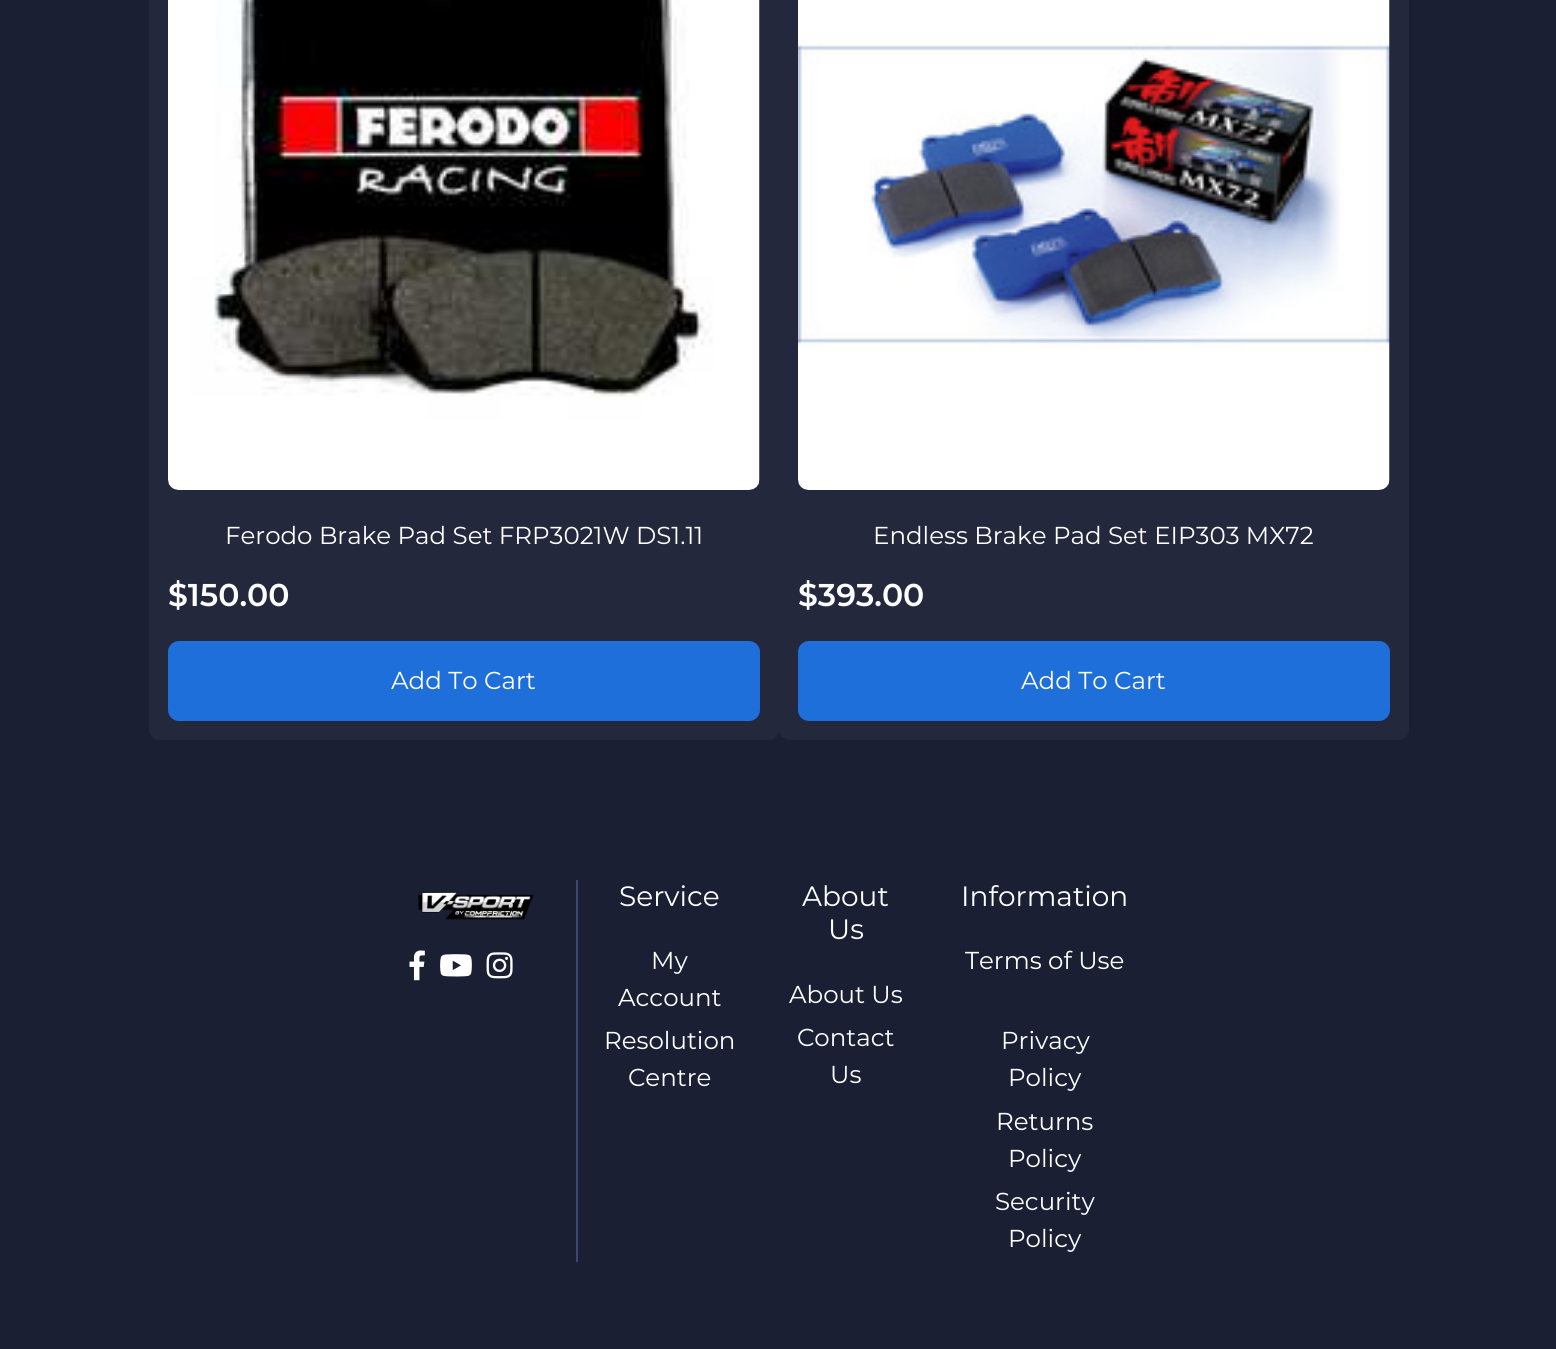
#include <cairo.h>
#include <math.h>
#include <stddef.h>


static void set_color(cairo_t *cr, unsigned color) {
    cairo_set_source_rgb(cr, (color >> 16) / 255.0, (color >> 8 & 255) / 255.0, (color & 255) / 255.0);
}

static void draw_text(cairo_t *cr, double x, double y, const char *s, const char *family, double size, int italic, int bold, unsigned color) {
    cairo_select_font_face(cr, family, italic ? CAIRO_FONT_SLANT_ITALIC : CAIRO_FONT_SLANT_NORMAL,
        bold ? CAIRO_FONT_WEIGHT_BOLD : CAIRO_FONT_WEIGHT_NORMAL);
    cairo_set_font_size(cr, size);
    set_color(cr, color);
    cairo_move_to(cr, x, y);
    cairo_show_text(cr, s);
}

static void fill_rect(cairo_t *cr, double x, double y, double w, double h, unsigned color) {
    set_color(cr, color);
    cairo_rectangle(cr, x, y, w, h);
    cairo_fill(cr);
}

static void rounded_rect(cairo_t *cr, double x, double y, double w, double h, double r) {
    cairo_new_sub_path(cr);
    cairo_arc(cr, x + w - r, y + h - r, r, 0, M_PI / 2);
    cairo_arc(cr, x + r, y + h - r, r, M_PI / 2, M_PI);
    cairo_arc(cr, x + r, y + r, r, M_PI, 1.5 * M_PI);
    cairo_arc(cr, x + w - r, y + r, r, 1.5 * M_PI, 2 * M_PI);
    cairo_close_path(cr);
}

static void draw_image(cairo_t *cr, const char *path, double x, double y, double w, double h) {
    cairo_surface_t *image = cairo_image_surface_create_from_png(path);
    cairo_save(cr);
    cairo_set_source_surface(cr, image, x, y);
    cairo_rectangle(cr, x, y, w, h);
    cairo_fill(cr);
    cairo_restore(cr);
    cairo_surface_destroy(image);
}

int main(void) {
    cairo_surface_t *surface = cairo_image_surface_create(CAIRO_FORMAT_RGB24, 1556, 1349);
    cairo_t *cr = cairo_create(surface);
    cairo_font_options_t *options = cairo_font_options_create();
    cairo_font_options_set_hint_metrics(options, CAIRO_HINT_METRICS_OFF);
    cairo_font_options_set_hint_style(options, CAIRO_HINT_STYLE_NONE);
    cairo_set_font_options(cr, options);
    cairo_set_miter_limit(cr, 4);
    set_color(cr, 0x1A1F34);
    cairo_paint(cr);
    set_color(cr, 0x23283C);
    rounded_rect(cr, 149, -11, 630, 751, 11);
    cairo_fill(cr);
    draw_image(cr, "assets/img1.png", 168, 0, 592, 490);
    draw_text(cr, 225, 544, "Ferodo Brake Pad Set FRP3021W DS1.11", "Montserrat", 24.5, 0, 0, 0xFFFFFF);
    draw_text(cr, 168, 606, "$150.00", "Montserrat SemiBold", 31.5, 0, 0, 0xFFFFFF);
    set_color(cr, 0x1E6FD9);
    rounded_rect(cr, 169, 642, 590, 78, 10);
    cairo_fill_preserve(cr);
    cairo_stroke(cr);
    draw_text(cr, 391, 689, "Add To Cart", "Montserrat", 24.5, 0, 0, 0xFFFFFF);
    set_color(cr, 0x23283C);
    rounded_rect(cr, 779, -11, 630, 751, 11);
    cairo_fill(cr);
    draw_image(cr, "assets/img2.png", 798, 0, 592, 490);
    draw_text(cr, 873, 544, "Endless Brake Pad Set EIP303 MX72", "Montserrat", 24.5, 0, 0, 0xFFFFFF);
    draw_text(cr, 798, 606, "$393.00", "Montserrat SemiBold", 31.5, 0, 0, 0xFFFFFF);
    set_color(cr, 0x1E6FD9);
    rounded_rect(cr, 799, 642, 590, 78, 10);
    cairo_fill_preserve(cr);
    cairo_stroke(cr);
    draw_text(cr, 1021, 689, "Add To Cart", "Montserrat", 24.5, 0, 0, 0xFFFFFF);
    fill_rect(cr, 576, 880, 2, 382, 0x3C4670);
    draw_image(cr, "assets/img3.png", 418, 892, 116, 28);
    draw_image(cr, "assets/img4.png", 409, 950, 16, 31);
    draw_image(cr, "assets/img5.png", 440, 954, 32, 23);
    draw_image(cr, "assets/img6.png", 486, 952, 27, 27);
    draw_text(cr, 619, 906, "Service", "Montserrat", 28, 0, 0, 0xFFFFFF);
    draw_text(cr, 651, 969, "My", "Montserrat", 24.5, 0, 0, 0xFFFFFF);
    draw_text(cr, 618, 1006, "Account", "Montserrat", 24.5, 0, 0, 0xFFFFFF);
    draw_text(cr, 604, 1049, "Resolution", "Montserrat", 24.5, 0, 0, 0xFFFFFF);
    draw_text(cr, 628, 1086, "Centre", "Montserrat", 24.5, 0, 0, 0xFFFFFF);
    draw_text(cr, 802, 906, "About", "Montserrat", 28, 0, 0, 0xFFFFFF);
    draw_text(cr, 828, 939, "Us", "Montserrat", 28, 0, 0, 0xFFFFFF);
    draw_text(cr, 789, 1003, "About Us", "Montserrat", 24.5, 0, 0, 0xFFFFFF);
    draw_text(cr, 797, 1046, "Contact", "Montserrat", 24.5, 0, 0, 0xFFFFFF);
    draw_text(cr, 830, 1083, "Us", "Montserrat", 24.5, 0, 0, 0xFFFFFF);
    draw_text(cr, 961, 906, "Information", "Montserrat", 28, 0, 0, 0xFFFFFF);
    draw_text(cr, 965, 969, "Terms of Use", "Montserrat", 24.5, 0, 0, 0xFFFFFF);
    draw_text(cr, 1001, 1049, "Privacy", "Montserrat", 24.5, 0, 0, 0xFFFFFF);
    draw_text(cr, 1008, 1086, "Policy", "Montserrat", 24.5, 0, 0, 0xFFFFFF);
    draw_text(cr, 996, 1130, "Returns", "Montserrat", 24.5, 0, 0, 0xFFFFFF);
    draw_text(cr, 1008, 1167, "Policy", "Montserrat", 24.5, 0, 0, 0xFFFFFF);
    draw_text(cr, 995, 1210, "Security", "Montserrat", 24.5, 0, 0, 0xFFFFFF);
    draw_text(cr, 1008, 1247, "Policy", "Montserrat", 24.5, 0, 0, 0xFFFFFF);
    cairo_surface_write_to_png(surface, "output.png");
    cairo_font_options_destroy(options);
    cairo_destroy(cr);
    cairo_surface_destroy(surface);
    return 0;
}
